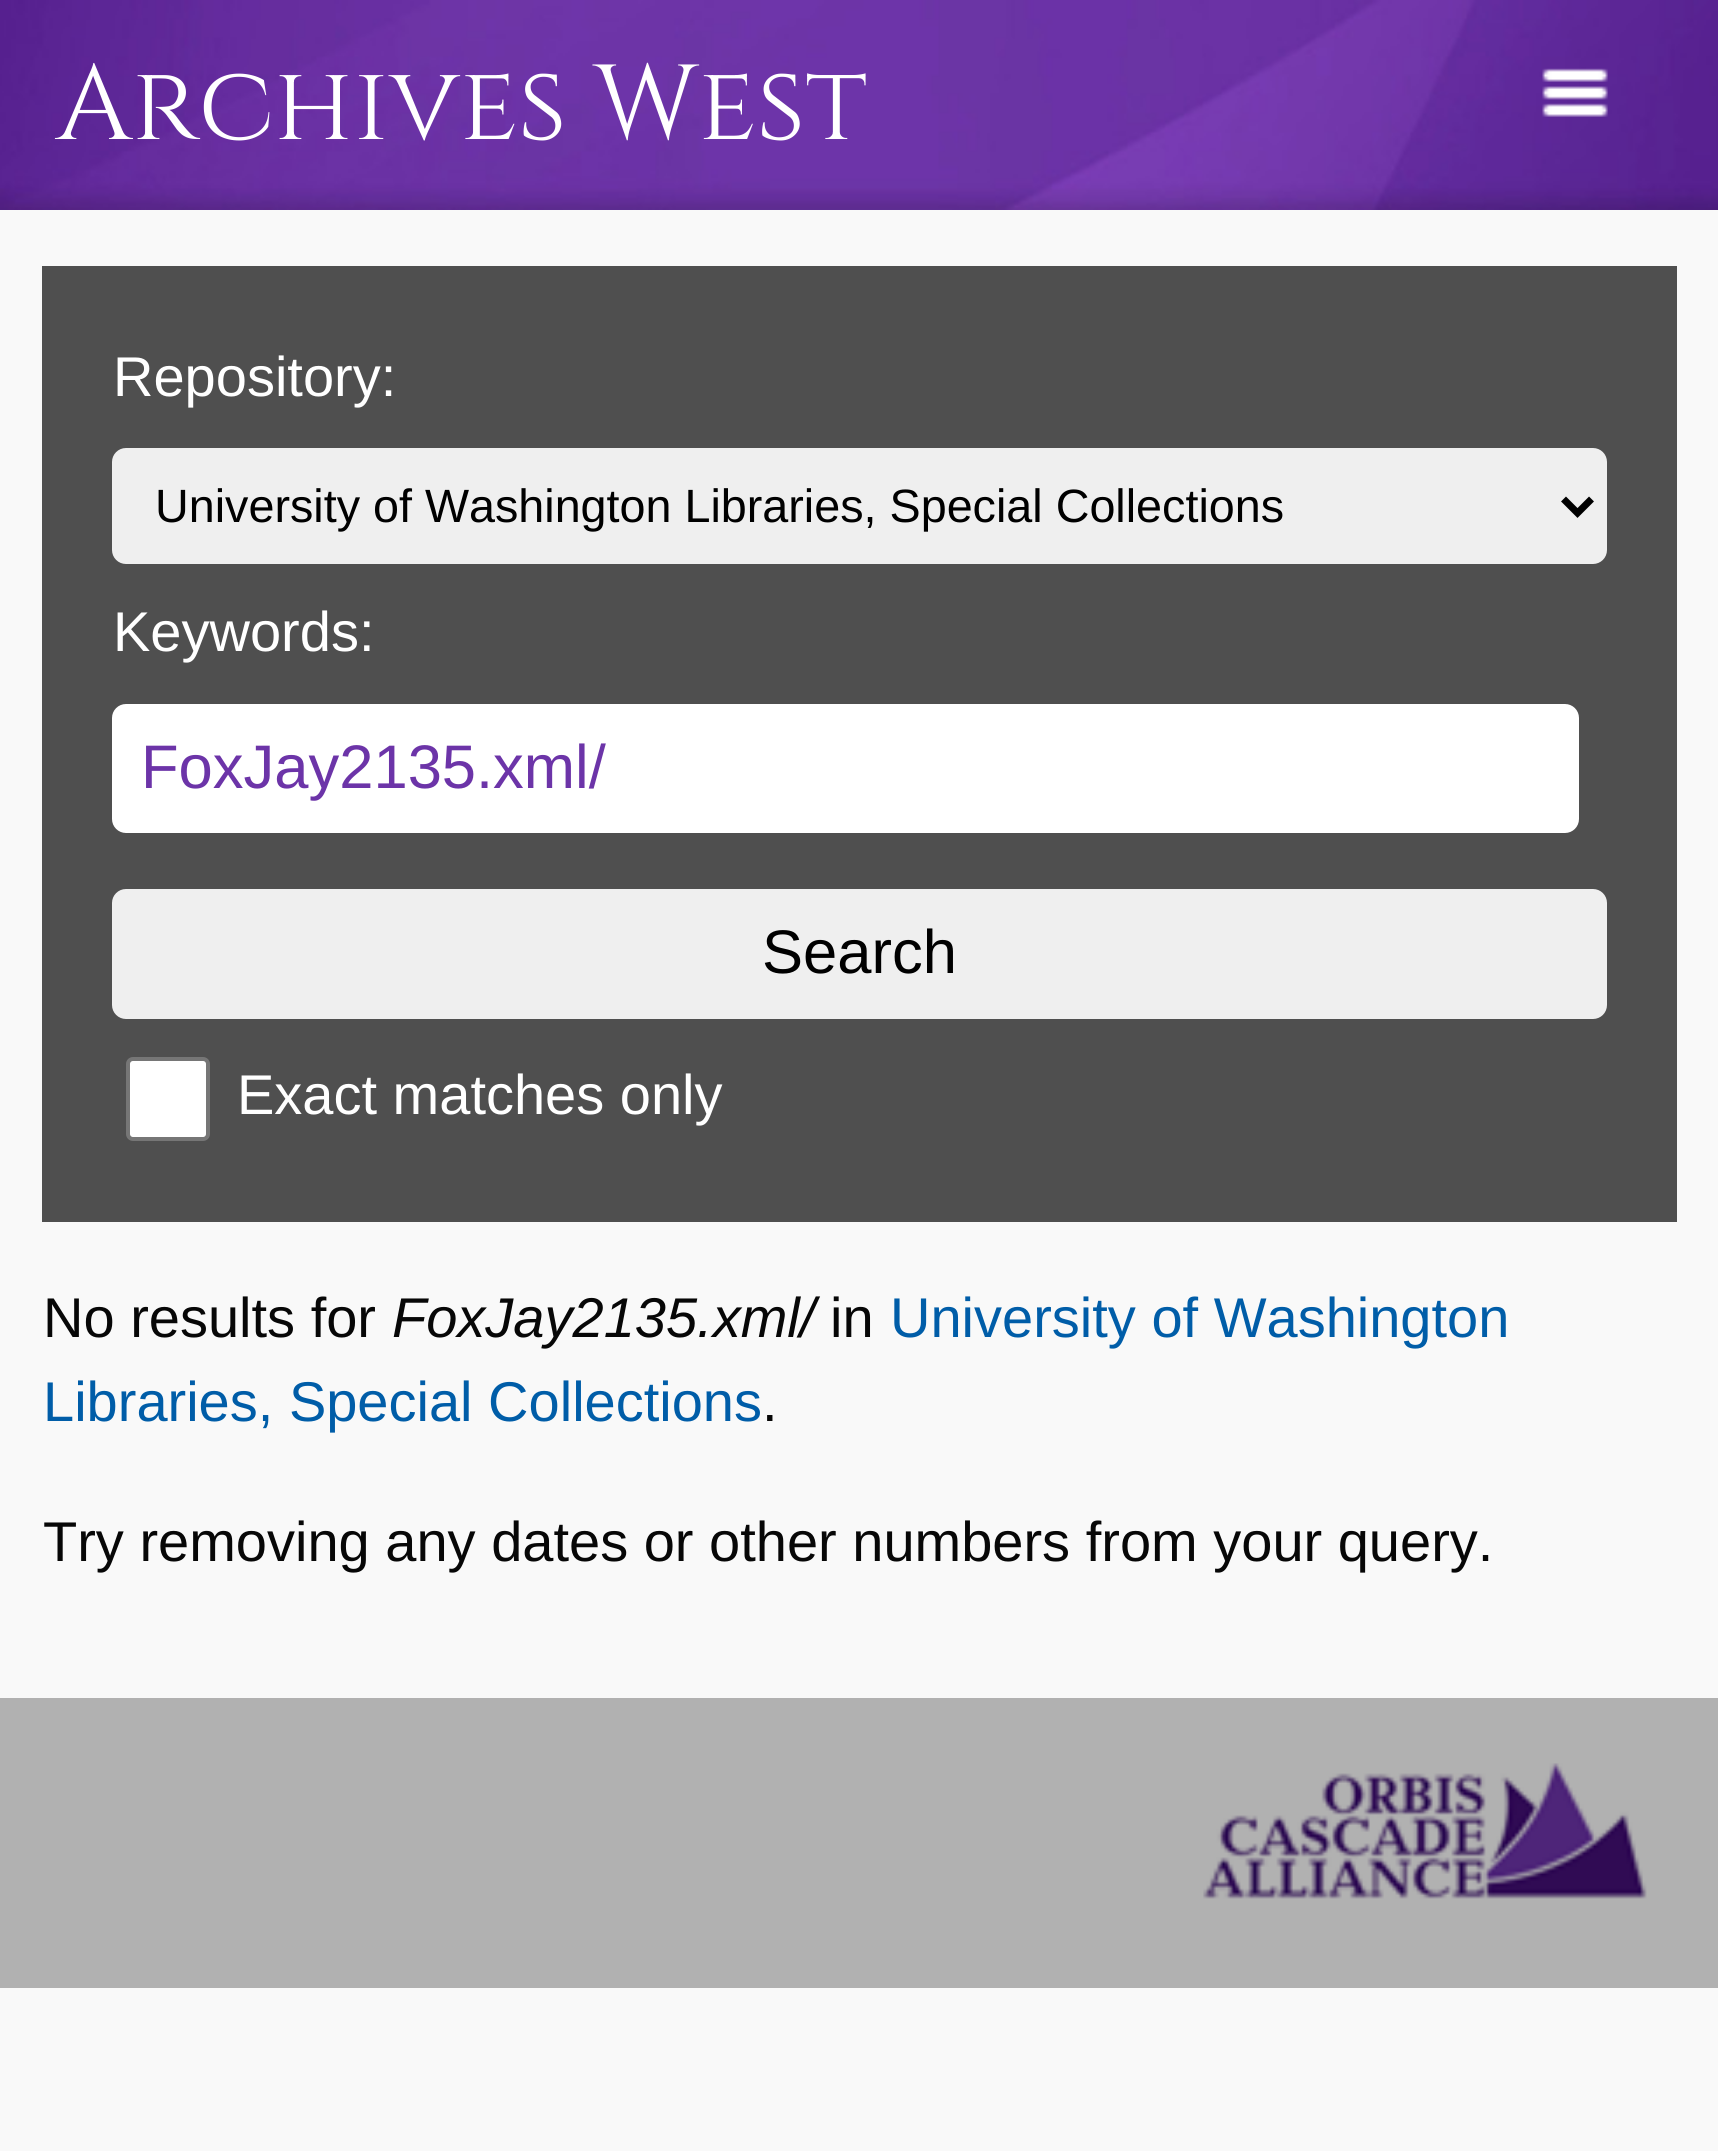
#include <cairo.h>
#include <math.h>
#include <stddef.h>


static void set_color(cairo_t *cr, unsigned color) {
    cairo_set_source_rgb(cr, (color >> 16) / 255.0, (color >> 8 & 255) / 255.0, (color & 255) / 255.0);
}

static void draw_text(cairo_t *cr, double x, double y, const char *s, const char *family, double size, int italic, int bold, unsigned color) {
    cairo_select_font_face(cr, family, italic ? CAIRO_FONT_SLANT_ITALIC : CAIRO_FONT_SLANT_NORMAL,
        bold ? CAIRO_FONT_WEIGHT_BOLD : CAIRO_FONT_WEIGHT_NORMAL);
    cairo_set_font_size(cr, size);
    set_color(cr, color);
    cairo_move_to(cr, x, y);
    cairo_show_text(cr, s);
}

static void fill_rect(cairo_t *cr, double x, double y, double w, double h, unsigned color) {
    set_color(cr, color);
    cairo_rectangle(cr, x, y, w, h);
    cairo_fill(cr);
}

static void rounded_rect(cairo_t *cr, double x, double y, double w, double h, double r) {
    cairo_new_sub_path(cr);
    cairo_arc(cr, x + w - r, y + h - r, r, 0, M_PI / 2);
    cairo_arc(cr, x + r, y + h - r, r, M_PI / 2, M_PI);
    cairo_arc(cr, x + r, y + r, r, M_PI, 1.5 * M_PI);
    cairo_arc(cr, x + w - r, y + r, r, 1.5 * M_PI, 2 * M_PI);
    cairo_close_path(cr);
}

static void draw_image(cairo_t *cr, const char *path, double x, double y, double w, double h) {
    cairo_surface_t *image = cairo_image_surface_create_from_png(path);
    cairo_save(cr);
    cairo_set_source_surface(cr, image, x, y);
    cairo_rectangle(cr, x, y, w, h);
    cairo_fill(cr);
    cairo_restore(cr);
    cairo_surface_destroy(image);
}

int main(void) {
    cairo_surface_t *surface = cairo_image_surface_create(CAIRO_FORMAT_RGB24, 1718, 2151);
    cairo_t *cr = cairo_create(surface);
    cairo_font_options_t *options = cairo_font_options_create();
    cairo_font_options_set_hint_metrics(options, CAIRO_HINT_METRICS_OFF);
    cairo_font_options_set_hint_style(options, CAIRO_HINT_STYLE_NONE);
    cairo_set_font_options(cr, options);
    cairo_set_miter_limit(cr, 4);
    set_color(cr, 0xF9F9F9);
    cairo_paint(cr);
    draw_image(cr, "assets/img1.png", 0, 0, 1718, 210);
    draw_text(cr, 56, 139, "Archives West", "Cinzel", 106.5, 0, 0, 0xFFFFFF);
    draw_image(cr, "assets/img2.png", 1542, 68, 66, 49);
    fill_rect(cr, 42, 266, 1635, 956, 0x4F4F4F);
    draw_text(cr, 113, 396, "Repository:", "Liberation Sans", 56, 0, 0, 0xFFFFFF);
    set_color(cr, 0xEFEFEF);
    rounded_rect(cr, 112, 448, 1495, 116, 14);
    cairo_fill(cr);
    cairo_new_path(cr);
    cairo_move_to(cr, 1563.5, 499);
    cairo_line_to(cr, 1577.5, 513);
    cairo_line_to(cr, 1591.5, 499);
    set_color(cr, 0x000000);
    cairo_set_line_width(cr, 7);
    cairo_stroke(cr);
    draw_text(cr, 155, 522, "University of Washington Libraries, Special Collections", "Liberation Sans", 46.7, 0, 0, 0x000000);
    draw_text(cr, 113, 651, "Keywords:", "Liberation Sans", 56, 0, 0, 0xFFFFFF);
    rounded_rect(cr, 112, 704, 1467, 129, 14);
    cairo_fill(cr);
    draw_text(cr, 141, 788, "FoxJay2135.xml/", "Liberation Sans", 61.5, 0, 0, 0x6C34A8);
    set_color(cr, 0xEFEFEF);
    rounded_rect(cr, 112, 889, 1495, 130, 14);
    cairo_fill(cr);
    draw_text(cr, 762, 973, "Search", "Liberation Sans", 61.5, 0, 0, 0x000000);
    set_color(cr, 0xFFFFFF);
    rounded_rect(cr, 128, 1059, 80, 80, 5);
    cairo_fill_preserve(cr);
    set_color(cr, 0x767676);
    cairo_set_line_width(cr, 4);
    cairo_stroke(cr);
    draw_text(cr, 237, 1114, "Exact matches only", "Liberation Sans", 56, 0, 0, 0xFFFFFF);
    draw_text(cr, 43, 1337, "No results for", "Liberation Sans", 56, 0, 0, 0x070707);
    draw_text(cr, 392, 1337, "FoxJay2135.xml/", "Liberation Sans", 56, 1, 0, 0x070707);
    draw_text(cr, 830, 1337, "in", "Liberation Sans", 56, 0, 0, 0x070707);
    draw_text(cr, 890, 1337, "University of Washington", "Liberation Sans", 56, 0, 0, 0x005DA8);
    draw_text(cr, 43, 1421, "Libraries, Special Collections", "Liberation Sans", 56, 0, 0, 0x005DA8);
    draw_text(cr, 762, 1421, ".", "Liberation Sans", 56, 0, 0, 0x070707);
    draw_text(cr, 43, 1561, "Try removing any dates or other numbers from your query.", "Liberation Sans", 56, 0, 0, 0x070707);
    fill_rect(cr, 0, 1698, 1718, 290, 0xB1B1B1);
    draw_image(cr, "assets/img3.png", 1203, 1763, 444, 136);
    cairo_surface_write_to_png(surface, "output.png");
    cairo_font_options_destroy(options);
    cairo_destroy(cr);
    cairo_surface_destroy(surface);
    return 0;
}
